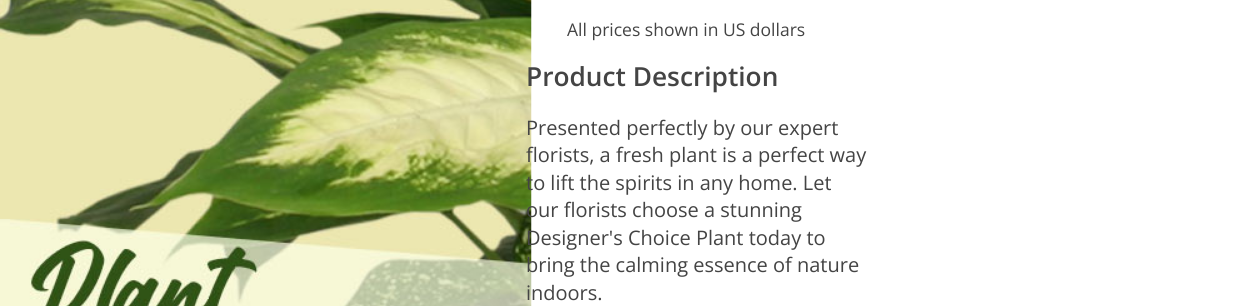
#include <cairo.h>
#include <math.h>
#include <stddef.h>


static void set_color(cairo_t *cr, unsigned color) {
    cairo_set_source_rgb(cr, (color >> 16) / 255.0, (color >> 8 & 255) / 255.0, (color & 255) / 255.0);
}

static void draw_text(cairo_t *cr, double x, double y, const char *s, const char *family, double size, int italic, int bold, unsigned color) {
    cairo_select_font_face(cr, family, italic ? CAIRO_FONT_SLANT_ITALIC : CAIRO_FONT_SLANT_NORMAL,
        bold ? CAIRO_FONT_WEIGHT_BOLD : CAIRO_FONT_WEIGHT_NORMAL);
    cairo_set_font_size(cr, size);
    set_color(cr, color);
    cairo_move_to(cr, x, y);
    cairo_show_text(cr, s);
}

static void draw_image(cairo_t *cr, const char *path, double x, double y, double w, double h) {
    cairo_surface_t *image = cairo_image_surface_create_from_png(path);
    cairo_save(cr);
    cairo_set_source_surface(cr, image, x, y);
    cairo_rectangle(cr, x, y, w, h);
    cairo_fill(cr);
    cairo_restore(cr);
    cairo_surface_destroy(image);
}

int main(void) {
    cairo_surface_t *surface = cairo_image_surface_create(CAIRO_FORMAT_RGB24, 1253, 306);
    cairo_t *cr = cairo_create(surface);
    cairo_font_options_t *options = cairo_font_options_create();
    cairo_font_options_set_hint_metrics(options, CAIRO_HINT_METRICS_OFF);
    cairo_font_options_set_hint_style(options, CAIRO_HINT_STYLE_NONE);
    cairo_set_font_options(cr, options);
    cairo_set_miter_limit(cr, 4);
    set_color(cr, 0xFFFFFF);
    cairo_paint(cr);
    draw_image(cr, "assets/img1.png", 0, 0, 532, 306);
    draw_text(cr, 567, 36, "All prices shown in US dollars", "Open Sans", 17.5, 0, 0, 0x444444);
    draw_text(cr, 526, 86, "Product Description", "Open Sans SemiBold", 26.25, 0, 0, 0x444444);
    draw_text(cr, 526, 135, "Presented perfectly by our expert", "Open Sans", 20, 0, 0, 0x444444);
    draw_text(cr, 526, 162, "florists, a fresh plant is a perfect way", "Open Sans", 20, 0, 0, 0x444444);
    draw_text(cr, 526, 190, "to lift the spirits in any home. Let", "Open Sans", 20, 0, 0, 0x444444);
    draw_text(cr, 526, 217, "our florists choose a stunning", "Open Sans", 20, 0, 0, 0x444444);
    draw_text(cr, 526, 245, "Designer's Choice Plant today to", "Open Sans", 20, 0, 0, 0x444444);
    draw_text(cr, 526, 272, "bring the calming essence of nature", "Open Sans", 20, 0, 0, 0x444444);
    draw_text(cr, 526, 300, "indoors.", "Open Sans", 20, 0, 0, 0x444444);
    cairo_surface_write_to_png(surface, "output.png");
    cairo_font_options_destroy(options);
    cairo_destroy(cr);
    cairo_surface_destroy(surface);
    return 0;
}
